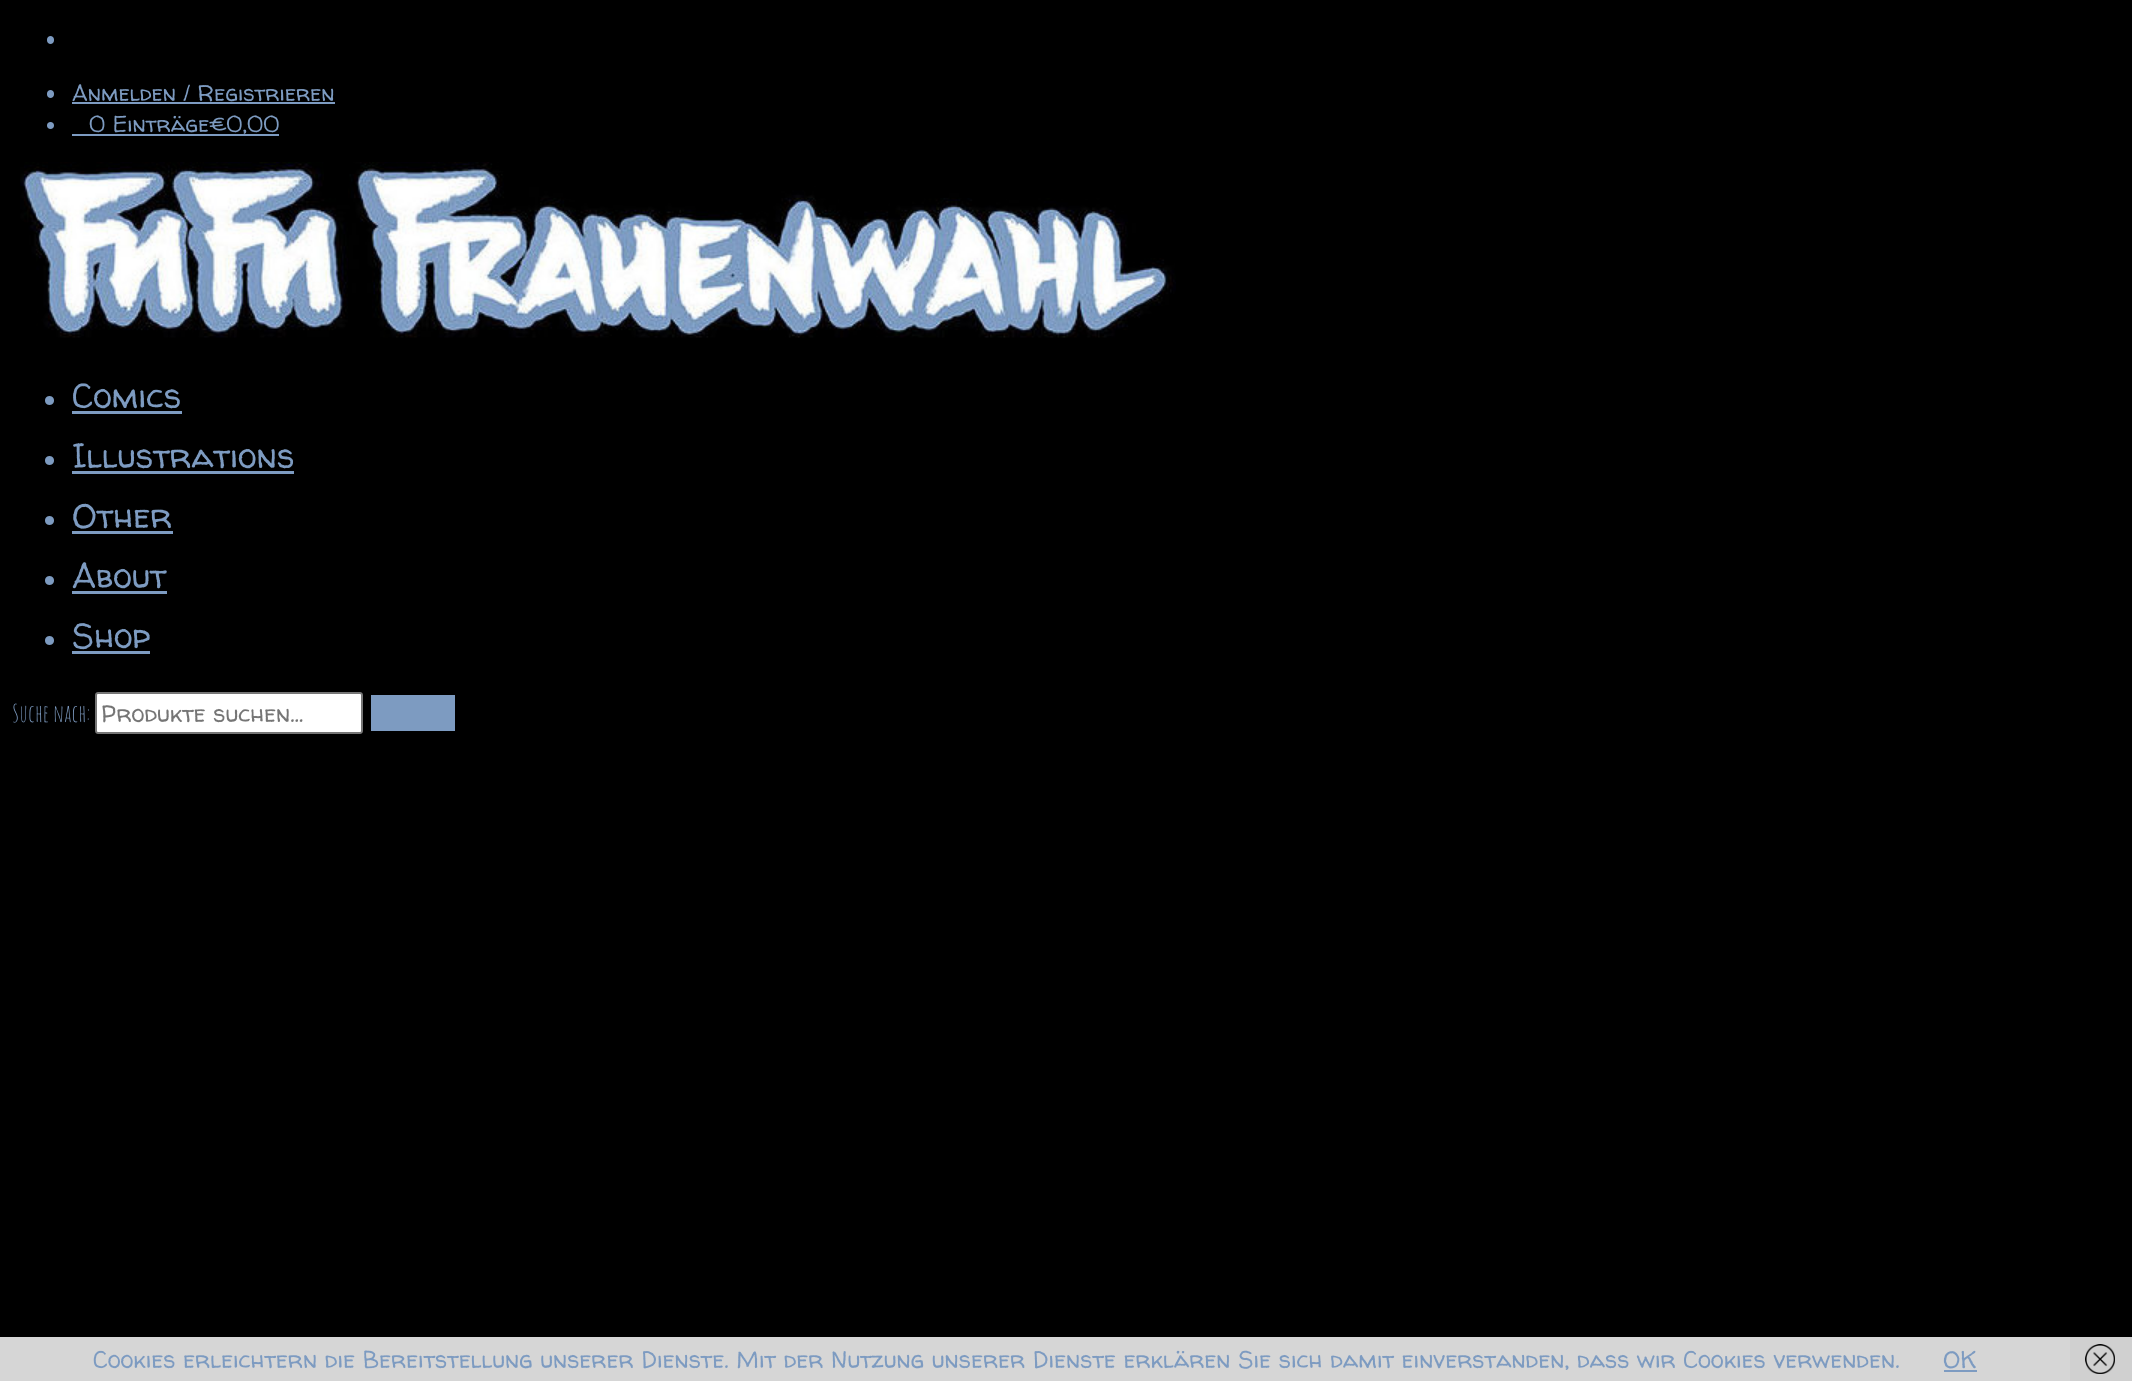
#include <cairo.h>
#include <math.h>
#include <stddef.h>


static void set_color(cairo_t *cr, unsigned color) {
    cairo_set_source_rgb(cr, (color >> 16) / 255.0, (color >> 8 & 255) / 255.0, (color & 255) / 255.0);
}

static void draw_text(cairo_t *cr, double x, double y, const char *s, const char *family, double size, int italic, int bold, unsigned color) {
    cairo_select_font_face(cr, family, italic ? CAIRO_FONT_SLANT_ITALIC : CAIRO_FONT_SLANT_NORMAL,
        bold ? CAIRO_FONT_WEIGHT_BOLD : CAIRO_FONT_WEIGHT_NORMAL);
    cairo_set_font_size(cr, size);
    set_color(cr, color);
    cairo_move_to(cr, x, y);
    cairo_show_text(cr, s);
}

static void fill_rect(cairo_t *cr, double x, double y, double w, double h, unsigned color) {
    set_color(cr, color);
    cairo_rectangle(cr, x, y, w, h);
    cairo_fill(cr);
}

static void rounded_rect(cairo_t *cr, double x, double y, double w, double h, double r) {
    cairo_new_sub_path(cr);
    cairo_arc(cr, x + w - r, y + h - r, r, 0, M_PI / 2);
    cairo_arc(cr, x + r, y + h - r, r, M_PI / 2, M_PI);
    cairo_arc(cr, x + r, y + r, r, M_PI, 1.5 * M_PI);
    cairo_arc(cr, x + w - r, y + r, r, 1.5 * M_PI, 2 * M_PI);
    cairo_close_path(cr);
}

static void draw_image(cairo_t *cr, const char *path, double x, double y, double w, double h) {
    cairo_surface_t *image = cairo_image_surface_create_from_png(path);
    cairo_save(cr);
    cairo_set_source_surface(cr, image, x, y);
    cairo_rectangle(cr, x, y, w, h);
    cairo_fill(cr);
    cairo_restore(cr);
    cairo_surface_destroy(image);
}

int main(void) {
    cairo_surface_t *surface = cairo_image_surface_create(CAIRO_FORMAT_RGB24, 2132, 1381);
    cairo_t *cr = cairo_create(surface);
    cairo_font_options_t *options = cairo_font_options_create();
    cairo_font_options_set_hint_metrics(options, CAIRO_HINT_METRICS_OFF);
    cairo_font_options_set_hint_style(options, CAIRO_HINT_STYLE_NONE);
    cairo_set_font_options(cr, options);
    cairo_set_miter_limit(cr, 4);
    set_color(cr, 0x000000);
    cairo_paint(cr);
    set_color(cr, 0x7D9BC1);
    rounded_rect(cr, 47, 36, 7, 8, 3.5);
    cairo_fill(cr);
    rounded_rect(cr, 47, 90, 7, 8, 3.5);
    cairo_fill(cr);
    draw_text(cr, 72, 101, "Anmelden / Registrieren", "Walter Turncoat", 22.5, 0, 0, 0x7D9BC1);
    fill_rect(cr, 72, 102, 263, 2, 0x7D9BC1);
    cairo_new_path(cr);
    cairo_arc(cr, 50.5, 125.5, 3.5, 0, 2 * M_PI);
    cairo_fill(cr);
    draw_text(cr, 89, 132, "0 Einträge€0,00", "Walter Turncoat", 22.5, 0, 0, 0x7D9BC1);
    fill_rect(cr, 72, 134, 207, 2, 0x7D9BC1);
    draw_image(cr, "assets/img1.png", 20, 162, 1156, 176);
    cairo_arc(cr, 49.5, 400.5, 4.5, 0, 2 * M_PI);
    cairo_fill(cr);
    draw_text(cr, 72, 408, "Comics", "Walter Turncoat", 34.5, 0, 0, 0x7D9BC1);
    fill_rect(cr, 72, 411, 110, 3, 0x7D9BC1);
    cairo_new_path(cr);
    cairo_arc(cr, 49.5, 460.5, 4.5, 0, 2 * M_PI);
    cairo_fill(cr);
    draw_text(cr, 72, 468, "Illustrations", "Walter Turncoat", 34.5, 0, 0, 0x7D9BC1);
    fill_rect(cr, 72, 471, 222, 3, 0x7D9BC1);
    cairo_new_path(cr);
    cairo_arc(cr, 49.5, 520.5, 4.5, 0, 2 * M_PI);
    cairo_fill(cr);
    draw_text(cr, 72, 528, "Other", "Walter Turncoat", 34.5, 0, 0, 0x7D9BC1);
    fill_rect(cr, 72, 531, 101, 3, 0x7D9BC1);
    cairo_new_path(cr);
    cairo_arc(cr, 49.5, 580.5, 4.5, 0, 2 * M_PI);
    cairo_fill(cr);
    draw_text(cr, 72, 588, "About", "Walter Turncoat", 34.5, 0, 0, 0x7D9BC1);
    fill_rect(cr, 72, 591, 95, 3, 0x7D9BC1);
    cairo_new_path(cr);
    cairo_arc(cr, 49.5, 640.5, 4.5, 0, 2 * M_PI);
    cairo_fill(cr);
    draw_text(cr, 72, 648, "Shop", "Walter Turncoat", 34.5, 0, 0, 0x7D9BC1);
    fill_rect(cr, 72, 651, 78, 3, 0x7D9BC1);
    draw_text(cr, 12, 722, "Suche nach:", "Amatic SC", 24, 0, 0, 0x7D9BC1);
    set_color(cr, 0xFFFFFF);
    rounded_rect(cr, 96, 693, 266, 40, 2);
    cairo_fill_preserve(cr);
    set_color(cr, 0x767676);
    cairo_stroke(cr);
    draw_text(cr, 101, 722, "Produkte suchen…", "Walter Turncoat", 24, 0, 0, 0x757575);
    fill_rect(cr, 371, 695, 84, 36, 0x7D9BC1);
    fill_rect(cr, 0, 1337, 2070, 44, 0xD6D6D6);
    draw_text(cr, 93, 1368, "Cookies erleichtern die Bereitstellung unserer Dienste. Mit der Nutzung unserer Dienste erklären Sie sich damit einverstanden, dass wir Cookies verwenden.", "Walter Turncoat", 24, 0, 0, 0x7D9BC1);
    draw_text(cr, 1943, 1368, "OK", "Walter Turncoat", 24, 0, 0, 0x7D9BC1);
    fill_rect(cr, 1944, 1370, 33, 2, 0x7D9BC1);
    fill_rect(cr, 2070, 1337, 62, 44, 0xD0D0D0);
    draw_image(cr, "assets/img2.png", 2085, 1344, 30, 30);
    cairo_surface_write_to_png(surface, "output.png");
    cairo_font_options_destroy(options);
    cairo_destroy(cr);
    cairo_surface_destroy(surface);
    return 0;
}
